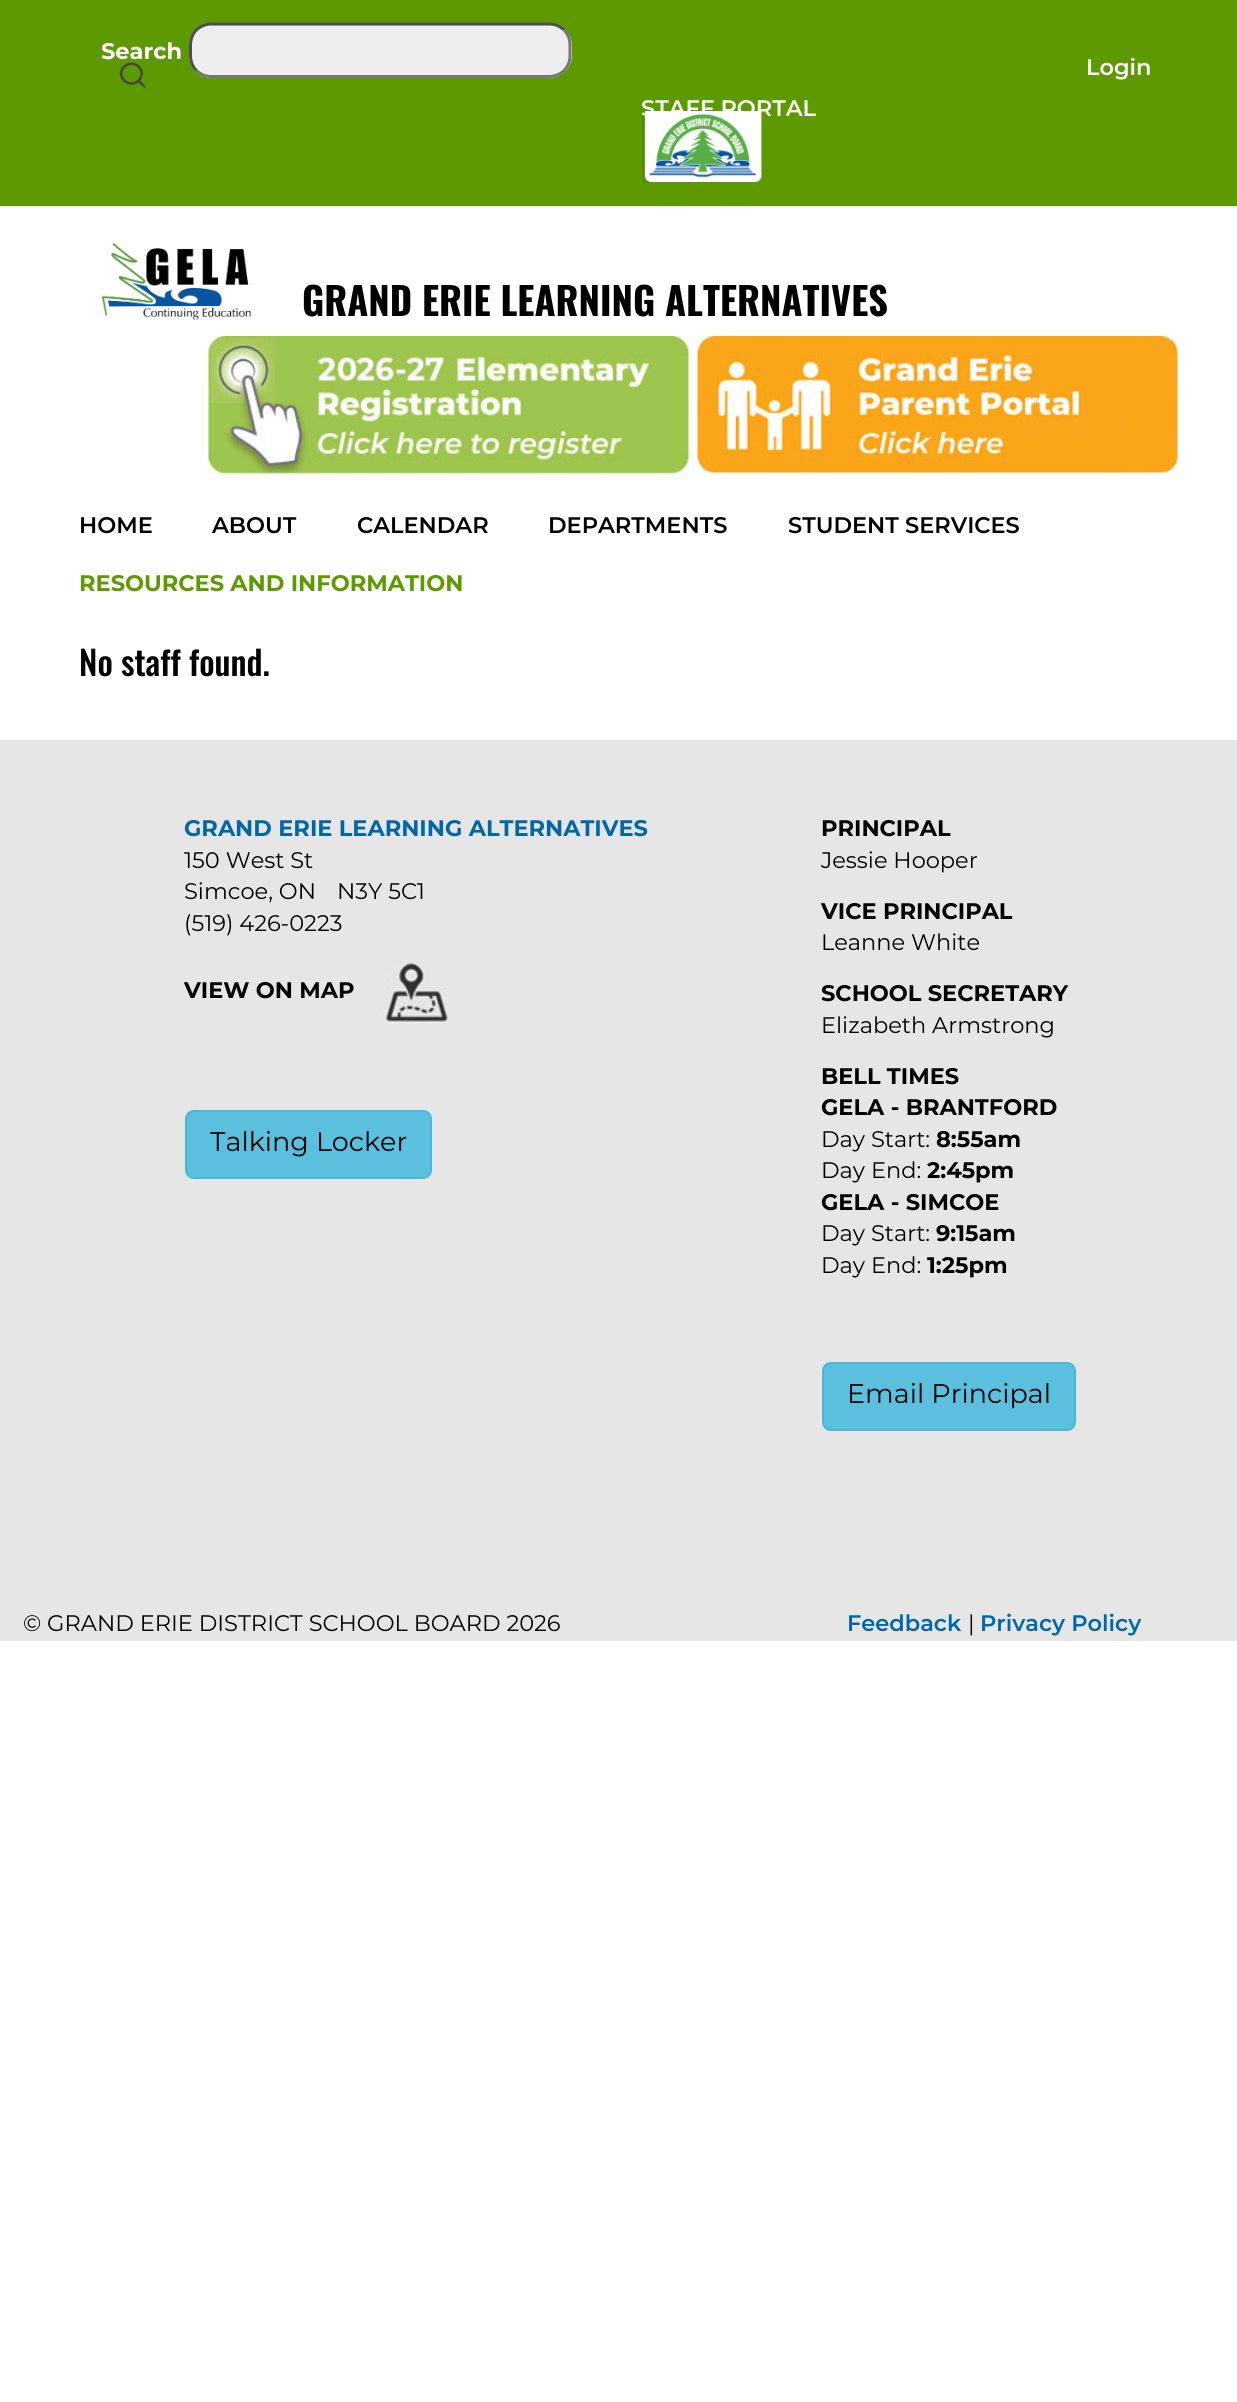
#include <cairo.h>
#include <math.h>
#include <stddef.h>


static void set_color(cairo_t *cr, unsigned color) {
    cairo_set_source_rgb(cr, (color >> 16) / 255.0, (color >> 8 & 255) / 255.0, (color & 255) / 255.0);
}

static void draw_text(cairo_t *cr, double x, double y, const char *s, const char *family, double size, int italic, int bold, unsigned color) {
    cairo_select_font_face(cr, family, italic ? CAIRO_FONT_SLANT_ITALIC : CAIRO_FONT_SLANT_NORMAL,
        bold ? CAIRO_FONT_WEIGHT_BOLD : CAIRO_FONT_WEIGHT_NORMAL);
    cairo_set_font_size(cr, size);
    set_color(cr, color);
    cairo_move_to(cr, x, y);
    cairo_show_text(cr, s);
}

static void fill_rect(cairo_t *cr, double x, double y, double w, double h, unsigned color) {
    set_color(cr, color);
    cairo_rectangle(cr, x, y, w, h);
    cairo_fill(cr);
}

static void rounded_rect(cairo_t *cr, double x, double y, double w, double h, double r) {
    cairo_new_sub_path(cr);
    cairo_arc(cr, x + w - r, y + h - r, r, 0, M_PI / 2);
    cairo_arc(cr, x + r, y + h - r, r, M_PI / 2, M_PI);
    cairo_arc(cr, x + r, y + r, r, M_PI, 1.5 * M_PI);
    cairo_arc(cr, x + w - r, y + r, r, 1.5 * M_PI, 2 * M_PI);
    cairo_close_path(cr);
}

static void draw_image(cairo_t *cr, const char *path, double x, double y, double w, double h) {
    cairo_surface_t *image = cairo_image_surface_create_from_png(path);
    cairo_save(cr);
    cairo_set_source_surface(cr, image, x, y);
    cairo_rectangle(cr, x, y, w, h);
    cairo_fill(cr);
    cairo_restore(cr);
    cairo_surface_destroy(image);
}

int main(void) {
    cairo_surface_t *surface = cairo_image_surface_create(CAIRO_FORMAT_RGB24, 1237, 2402);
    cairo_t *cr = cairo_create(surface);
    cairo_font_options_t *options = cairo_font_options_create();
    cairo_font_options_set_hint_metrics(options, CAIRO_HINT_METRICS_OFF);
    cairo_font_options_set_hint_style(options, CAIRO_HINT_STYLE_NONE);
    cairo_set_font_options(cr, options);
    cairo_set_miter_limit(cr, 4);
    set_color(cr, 0xFFFFFF);
    cairo_paint(cr);
    fill_rect(cr, 0, 0, 1237, 206, 0x5D9A02);
    draw_text(cr, 101, 59, "Search", "Montserrat", 22.5, 0, 1, 0xFFFFFF);
    set_color(cr, 0xEEEEEE);
    rounded_rect(cr, 189, 23, 383, 55, 23);
    cairo_fill(cr);
    cairo_new_path(cr);
    cairo_move_to(cr, 564, 30);
    cairo_curve_to(cr, 568, 34, 570, 39.5, 570, 45);
    cairo_line_to(cr, 570, 55.5);
    cairo_curve_to(cr, 570, 61, 568, 66.5, 564, 70.5);
    cairo_curve_to(cr, 560, 74.5, 554.5, 76.5, 549, 76.5);
    cairo_line_to(cr, 211.5, 76.5);
    cairo_curve_to(cr, 206, 76.5, 200.5, 74.5, 196.5, 70.5);
    set_color(cr, 0x767676);
    cairo_set_line_width(cr, 3);
    cairo_stroke(cr);
    cairo_new_path(cr);
    cairo_move_to(cr, 196.5, 70.5);
    cairo_curve_to(cr, 192.5, 66.5, 190.5, 61, 190.5, 55.5);
    cairo_line_to(cr, 190.5, 45);
    cairo_curve_to(cr, 190.5, 39.5, 192.5, 34, 196.5, 30);
    cairo_curve_to(cr, 200.5, 26, 206, 24, 211.5, 24);
    cairo_line_to(cr, 549, 24);
    cairo_curve_to(cr, 554.5, 24, 560, 26, 564, 30);
    set_color(cr, 0x4F4F4F);
    cairo_stroke(cr);
    draw_image(cr, "assets/img1.png", 119, 62, 27, 26);
    draw_text(cr, 641, 116, "STAFF PORTAL", "Montserrat SemiBold", 22.5, 0, 0, 0xFFFFFF);
    draw_image(cr, "assets/img2.png", 642, 111, 126, 72);
    draw_text(cr, 1086, 75, "Login", "Montserrat SemiBold", 22.5, 0, 0, 0xFFFFFF);
    draw_image(cr, "assets/img3.png", 102, 243, 149, 77);
    draw_text(cr, 302, 316, "GRAND ERIE LEARNING ALTERNATIVES", "Oswald", 38.25, 0, 1, 0x000000);
    draw_image(cr, "assets/img4.png", 208, 336, 481, 144);
    draw_image(cr, "assets/img5.png", 697, 336, 481, 137);
    draw_text(cr, 79, 533, "HOME", "Montserrat SemiBold", 22.5, 0, 0, 0x000000);
    draw_text(cr, 212, 533, "ABOUT", "Montserrat SemiBold", 22.5, 0, 0, 0x000000);
    draw_text(cr, 357, 533, "CALENDAR", "Montserrat SemiBold", 22.5, 0, 0, 0x000000);
    draw_text(cr, 548, 533, "DEPARTMENTS", "Montserrat SemiBold", 22.5, 0, 0, 0x000000);
    draw_text(cr, 788, 533, "STUDENT SERVICES", "Montserrat SemiBold", 22.5, 0, 0, 0x000000);
    draw_text(cr, 79, 591, "RESOURCES AND INFORMATION", "Montserrat", 22.5, 0, 1, 0x5D9A02);
    draw_text(cr, 79, 676, "No staff found.", "Oswald Medium", 33.75, 0, 0, 0x000000);
    fill_rect(cr, 0, 740, 1237, 901, 0xE6E6E6);
    draw_text(cr, 184, 836, "GRAND ERIE LEARNING ALTERNATIVES", "Montserrat", 22.5, 0, 1, 0x0067A8);
    draw_text(cr, 184, 868, "150 West St", "Montserrat", 22.5, 0, 0, 0x000000);
    draw_text(cr, 184, 899, "Simcoe, ON", "Montserrat", 22.5, 0, 0, 0x000000);
    draw_text(cr, 337, 899, "N3Y 5C1", "Montserrat", 22.5, 0, 0, 0x000000);
    draw_text(cr, 184, 931, "(519) 426-0223", "Montserrat", 22.5, 0, 0, 0x000000);
    draw_text(cr, 184, 998, "VIEW ON MAP", "Montserrat", 22.5, 0, 1, 0x000000);
    draw_image(cr, "assets/img6.png", 383, 961, 66, 63);
    set_color(cr, 0x5BC0DE);
    rounded_rect(cr, 186, 1111, 245, 67, 8);
    cairo_fill_preserve(cr);
    set_color(cr, 0x46B8DA);
    cairo_set_line_width(cr, 2);
    cairo_stroke(cr);
    draw_text(cr, 210, 1151, "Talking Locker", "Montserrat", 27, 0, 0, 0x000000);
    draw_text(cr, 821, 836, "PRINCIPAL", "Montserrat", 22.5, 0, 1, 0x000000);
    draw_text(cr, 821, 868, "Jessie Hooper", "Montserrat", 22.5, 0, 0, 0x000000);
    draw_text(cr, 821, 919, "VICE PRINCIPAL", "Montserrat", 22.5, 0, 1, 0x000000);
    draw_text(cr, 821, 950, "Leanne White", "Montserrat", 22.5, 0, 0, 0x000000);
    draw_text(cr, 821, 1001, "SCHOOL SECRETARY", "Montserrat", 22.5, 0, 1, 0x000000);
    draw_text(cr, 821, 1033, "Elizabeth Armstrong", "Montserrat", 22.5, 0, 0, 0x000000);
    draw_text(cr, 821, 1084, "BELL TIMES", "Montserrat", 22.5, 0, 1, 0x000000);
    draw_text(cr, 821, 1115, "GELA - BRANTFORD", "Montserrat", 22.5, 0, 1, 0x000000);
    draw_text(cr, 821, 1147, "Day Start:", "Montserrat", 22.5, 0, 0, 0x000000);
    draw_text(cr, 936, 1147, "8:55am", "Montserrat", 22.5, 0, 1, 0x000000);
    draw_text(cr, 821, 1178, "Day End:", "Montserrat", 22.5, 0, 0, 0x000000);
    draw_text(cr, 927, 1178, "2:45pm", "Montserrat", 22.5, 0, 1, 0x000000);
    draw_text(cr, 821, 1210, "GELA - SIMCOE", "Montserrat", 22.5, 0, 1, 0x000000);
    draw_text(cr, 821, 1241, "Day Start:", "Montserrat", 22.5, 0, 0, 0x000000);
    draw_text(cr, 936, 1241, "9:15am", "Montserrat", 22.5, 0, 1, 0x000000);
    draw_text(cr, 821, 1273, "Day End:", "Montserrat", 22.5, 0, 0, 0x000000);
    draw_text(cr, 927, 1273, "1:25pm", "Montserrat", 22.5, 0, 1, 0x000000);
    set_color(cr, 0x5BC0DE);
    rounded_rect(cr, 823, 1363, 252, 67, 8);
    cairo_fill_preserve(cr);
    set_color(cr, 0x46B8DA);
    cairo_stroke(cr);
    draw_text(cr, 847, 1403, "Email Principal", "Montserrat", 27, 0, 0, 0x000000);
    draw_text(cr, 23, 1631, "© GRAND ERIE DISTRICT SCHOOL BOARD 2026", "Montserrat", 22.5, 0, 0, 0x000000);
    draw_text(cr, 847, 1631, "Feedback", "Montserrat SemiBold", 22.5, 0, 0, 0x0067A8);
    draw_text(cr, 968, 1631, "|", "Montserrat", 22.5, 0, 0, 0x000000);
    draw_text(cr, 980, 1631, "Privacy Policy", "Montserrat SemiBold", 22.5, 0, 0, 0x0067A8);
    cairo_surface_write_to_png(surface, "output.png");
    cairo_font_options_destroy(options);
    cairo_destroy(cr);
    cairo_surface_destroy(surface);
    return 0;
}
